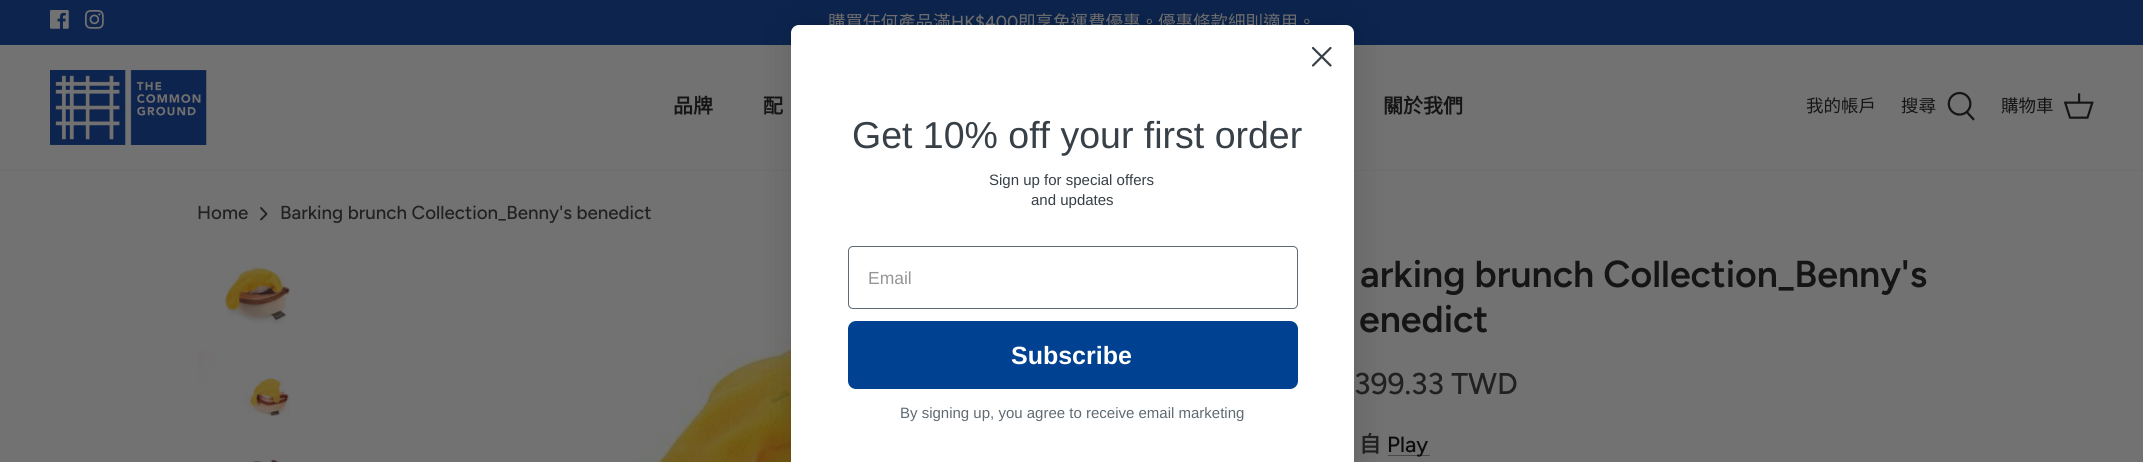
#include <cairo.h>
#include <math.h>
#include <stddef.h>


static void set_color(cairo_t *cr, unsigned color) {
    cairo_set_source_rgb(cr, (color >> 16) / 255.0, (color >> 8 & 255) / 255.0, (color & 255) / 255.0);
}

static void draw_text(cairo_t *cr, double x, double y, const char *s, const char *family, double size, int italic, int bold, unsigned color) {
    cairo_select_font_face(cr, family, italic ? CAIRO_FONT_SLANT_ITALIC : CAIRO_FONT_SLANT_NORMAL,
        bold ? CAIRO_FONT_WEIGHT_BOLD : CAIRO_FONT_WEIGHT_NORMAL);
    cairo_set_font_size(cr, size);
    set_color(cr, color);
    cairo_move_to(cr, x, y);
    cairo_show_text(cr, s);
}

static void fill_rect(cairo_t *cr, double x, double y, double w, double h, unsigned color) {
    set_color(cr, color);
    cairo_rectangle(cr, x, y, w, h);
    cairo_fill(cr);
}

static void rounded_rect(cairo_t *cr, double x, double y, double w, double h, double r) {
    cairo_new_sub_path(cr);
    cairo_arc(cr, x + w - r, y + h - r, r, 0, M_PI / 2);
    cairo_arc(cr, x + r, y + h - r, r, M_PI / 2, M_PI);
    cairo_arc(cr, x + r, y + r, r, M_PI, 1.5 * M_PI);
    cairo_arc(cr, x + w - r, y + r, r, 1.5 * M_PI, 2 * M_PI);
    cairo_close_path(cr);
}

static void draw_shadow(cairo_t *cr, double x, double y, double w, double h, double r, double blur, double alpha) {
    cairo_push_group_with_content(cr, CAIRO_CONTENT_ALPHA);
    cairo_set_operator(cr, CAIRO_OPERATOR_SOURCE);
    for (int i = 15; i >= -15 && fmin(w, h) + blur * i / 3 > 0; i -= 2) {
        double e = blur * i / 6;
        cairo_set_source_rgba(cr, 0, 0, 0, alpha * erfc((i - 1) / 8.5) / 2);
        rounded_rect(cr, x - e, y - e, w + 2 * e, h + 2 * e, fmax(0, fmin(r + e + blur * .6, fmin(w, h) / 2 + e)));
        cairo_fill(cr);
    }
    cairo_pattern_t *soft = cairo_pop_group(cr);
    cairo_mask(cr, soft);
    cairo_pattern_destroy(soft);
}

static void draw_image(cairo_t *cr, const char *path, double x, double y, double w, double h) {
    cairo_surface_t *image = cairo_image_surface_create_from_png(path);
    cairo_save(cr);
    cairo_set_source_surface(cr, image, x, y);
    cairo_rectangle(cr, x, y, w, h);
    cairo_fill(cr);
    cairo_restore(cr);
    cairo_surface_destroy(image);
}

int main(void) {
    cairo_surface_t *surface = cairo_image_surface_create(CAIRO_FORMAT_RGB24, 2143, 462);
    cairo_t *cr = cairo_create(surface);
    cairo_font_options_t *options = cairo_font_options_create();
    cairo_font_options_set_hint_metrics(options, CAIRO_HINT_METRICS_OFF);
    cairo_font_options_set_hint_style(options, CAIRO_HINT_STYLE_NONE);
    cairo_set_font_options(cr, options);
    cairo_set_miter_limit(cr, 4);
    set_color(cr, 0x727272);
    cairo_paint(cr);
    fill_rect(cr, 0, 0, 2143, 45, 0x0C244E);
    draw_image(cr, "assets/img1.png", 50, 10, 19, 19);
    draw_image(cr, "assets/img2.png", 85, 10, 19, 19);
    draw_text(cr, 828, 28, "購買任何產品滿", "Noto Sans CJK TC", 17.5, 0, 0, 0x727272);
    draw_text(cr, 951, 28, "HK$400", "Figtree Medium", 17.5, 0, 0, 0x727272);
    draw_text(cr, 1018, 28, "即享免運費優惠。優惠條款細則適用。", "Noto Sans CJK TC", 17.5, 0, 0, 0x727272);
    fill_rect(cr, 0, 170, 2143, 1, 0x6E6E6F);
    draw_image(cr, "assets/img3.png", 50, 70, 157, 75);
    draw_text(cr, 673, 113, "品牌", "Noto Sans CJK TC", 20, 0, 1, 0x151515);
    draw_text(cr, 763, 113, "配", "Noto Sans CJK TC", 20, 0, 1, 0x151515);
    draw_text(cr, 1383, 113, "關於我們", "Noto Sans CJK TC", 20, 0, 1, 0x151515);
    draw_text(cr, 1806, 112, "我的帳戶", "Noto Sans CJK TC", 17.5, 0, 0, 0x151515);
    draw_text(cr, 1901, 112, "搜尋", "Noto Sans CJK TC", 17.5, 0, 0, 0x151515);
    draw_image(cr, "assets/img4.png", 1947, 91, 28, 30);
    draw_text(cr, 2001, 112, "購物車", "Noto Sans CJK TC", 17.5, 0, 0, 0x151515);
    draw_image(cr, "assets/img5.png", 2064, 93, 30, 26);
    draw_image(cr, "assets/img9.png", 637, 331, 154, 131);
    fill_rect(cr, 1388, 455, 42, 1, 0x494949);
    set_color(cr, 0x000000);
    draw_shadow(cr, 791, 25, 563, 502, 8, 19, 0.15);
    set_color(cr, 0xFFFFFF);
    cairo_new_path(cr);
    cairo_move_to(cr, 799, 25);
    cairo_line_to(cr, 1346, 25);
    cairo_curve_to(cr, 1350.5, 25, 1354, 28.5, 1354, 33);
    cairo_line_to(cr, 1354, 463);
    cairo_line_to(cr, 791, 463);
    cairo_line_to(cr, 791, 33);
    cairo_curve_to(cr, 791, 28.5, 794.5, 25, 799, 25);
    cairo_close_path(cr);
    cairo_fill(cr);
    cairo_new_path(cr);
    cairo_move_to(cr, 1313, 48);
    cairo_line_to(cr, 1330.5, 65.5);
    cairo_move_to(cr, 1313, 65.5);
    cairo_line_to(cr, 1330.5, 48);
    cairo_close_path(cr);
    set_color(cr, 0x373F47);
    cairo_set_line_width(cr, 2.2);
    cairo_set_line_cap(cr, CAIRO_LINE_CAP_ROUND);
    cairo_set_line_join(cr, CAIRO_LINE_JOIN_ROUND);
    cairo_stroke(cr);
    draw_text(cr, 852, 148, "Get 10% off your first order", "Liberation Sans", 37.5, 0, 0, 0x373F47);
    draw_text(cr, 989, 185, "Sign up for special offers", "Liberation Sans", 15, 0, 0, 0x373F47);
    draw_text(cr, 1031, 205, "and updates", "Liberation Sans", 15, 0, 0, 0x373F47);
    rounded_rect(cr, 848.5, 246.5, 449, 62, 4.5);
    set_color(cr, 0x606A72);
    cairo_set_line_width(cr, 1);
    cairo_set_line_cap(cr, CAIRO_LINE_CAP_BUTT);
    cairo_set_line_join(cr, CAIRO_LINE_JOIN_MITER);
    cairo_stroke(cr);
    draw_text(cr, 868, 284, "Email", "Liberation Sans", 17.5, 0, 0, 0x949596);
    set_color(cr, 0x004191);
    rounded_rect(cr, 848, 321, 450, 68, 8);
    cairo_fill(cr);
    draw_text(cr, 1011, 364, "Subscribe", "Liberation Sans", 25, 0, 1, 0xFFFFFF);
    draw_text(cr, 900, 418, "By signing up, you agree to receive email marketing", "Liberation Sans", 15, 0, 0, 0x606A72);
    draw_text(cr, 197, 219, "Home", "Figtree Medium", 18.75, 0, 0, 0x212121);
    cairo_new_path(cr);
    cairo_move_to(cr, 261, 219.5);
    cairo_line_to(cr, 266.5, 214);
    cairo_line_to(cr, 261, 208);
    cairo_set_line_width(cr, 1.9);
    cairo_set_line_cap(cr, CAIRO_LINE_CAP_ROUND);
    cairo_set_line_join(cr, CAIRO_LINE_JOIN_ROUND);
    cairo_stroke(cr);
    draw_text(cr, 280, 219, "Barking brunch Collection_Benny's benedict", "Figtree Medium", 18.75, 0, 0, 0x212121);
    draw_image(cr, "assets/img6.png", 222, 264, 69, 61);
    draw_image(cr, "assets/img7.png", 197, 350, 93, 67);
    draw_image(cr, "assets/img8.png", 252, 459, 28, 3);
    draw_text(cr, 1360, 287, "arking brunch Collection_Benny's", "Figtree SemiBold", 37.5, 0, 0, 0x151515);
    draw_text(cr, 1359, 332, "enedict", "Figtree SemiBold", 37.5, 0, 0, 0x151515);
    draw_text(cr, 1354, 394, "399.33 TWD", "Figtree Medium", 30, 0, 0, 0x212121);
    draw_text(cr, 1359, 452, "自", "Noto Sans CJK TC", 22, 0, 1, 0x212121);
    draw_text(cr, 1387, 452, "Play", "Figtree Medium", 22, 0, 0, 0x0C0C0C);
    cairo_surface_write_to_png(surface, "output.png");
    cairo_font_options_destroy(options);
    cairo_destroy(cr);
    cairo_surface_destroy(surface);
    return 0;
}
